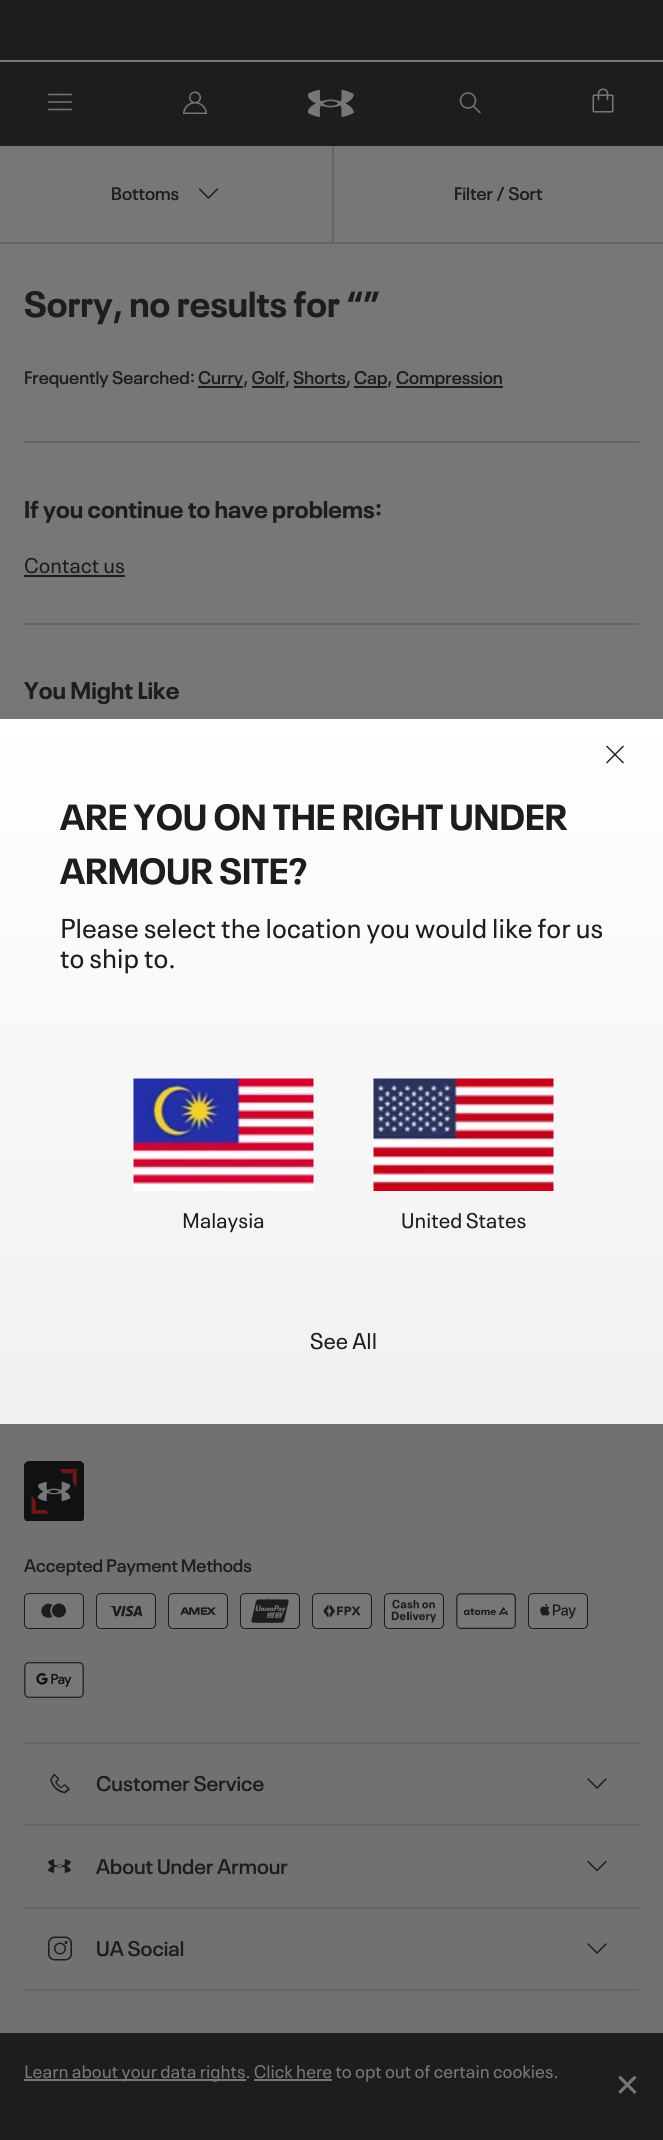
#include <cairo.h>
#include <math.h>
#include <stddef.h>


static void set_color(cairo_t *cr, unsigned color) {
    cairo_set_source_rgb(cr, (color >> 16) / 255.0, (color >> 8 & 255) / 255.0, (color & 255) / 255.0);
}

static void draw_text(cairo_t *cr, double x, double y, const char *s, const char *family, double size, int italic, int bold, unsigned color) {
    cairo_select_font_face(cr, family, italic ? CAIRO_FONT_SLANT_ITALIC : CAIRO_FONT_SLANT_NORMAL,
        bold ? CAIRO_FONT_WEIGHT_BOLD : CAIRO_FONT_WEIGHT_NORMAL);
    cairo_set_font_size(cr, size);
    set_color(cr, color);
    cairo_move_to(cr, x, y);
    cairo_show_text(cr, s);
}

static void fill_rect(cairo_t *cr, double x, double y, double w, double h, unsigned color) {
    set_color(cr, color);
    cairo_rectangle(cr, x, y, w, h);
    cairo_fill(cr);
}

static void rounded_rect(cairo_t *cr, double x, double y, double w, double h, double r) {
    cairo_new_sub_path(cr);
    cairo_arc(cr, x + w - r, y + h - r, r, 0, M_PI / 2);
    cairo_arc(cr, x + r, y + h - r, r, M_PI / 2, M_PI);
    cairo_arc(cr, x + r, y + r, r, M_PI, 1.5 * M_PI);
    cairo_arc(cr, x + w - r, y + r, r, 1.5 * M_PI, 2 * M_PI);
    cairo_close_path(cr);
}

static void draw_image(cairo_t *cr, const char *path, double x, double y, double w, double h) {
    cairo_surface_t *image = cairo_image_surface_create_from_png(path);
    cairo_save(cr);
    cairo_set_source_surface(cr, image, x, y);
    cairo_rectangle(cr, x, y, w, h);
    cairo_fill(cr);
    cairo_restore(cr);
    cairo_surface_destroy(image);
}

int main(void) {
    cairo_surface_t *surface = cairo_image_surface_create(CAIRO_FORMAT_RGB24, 663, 2140);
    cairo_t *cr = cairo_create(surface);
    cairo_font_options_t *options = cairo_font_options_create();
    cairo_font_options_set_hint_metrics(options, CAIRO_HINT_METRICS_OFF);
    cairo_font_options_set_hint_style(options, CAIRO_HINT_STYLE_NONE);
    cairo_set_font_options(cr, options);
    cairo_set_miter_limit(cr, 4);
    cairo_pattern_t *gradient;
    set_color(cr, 0x777777);
    cairo_paint(cr);
    fill_rect(cr, 0, 0, 663, 146, 0x1D1D1D);
    fill_rect(cr, 0, 60, 663, 2, 0x777777);
    draw_image(cr, "assets/img1.png", 48, 93, 24, 18);
    draw_image(cr, "assets/img2.png", 183, 91, 24, 23);
    draw_image(cr, "assets/img3.png", 308, 89, 48, 29);
    draw_image(cr, "assets/img4.png", 459, 92, 22, 22);
    draw_image(cr, "assets/img5.png", 592, 88, 22, 25);
    fill_rect(cr, 0, 242, 663, 2, 0x656565);
    draw_text(cr, 111, 200, "Bottoms", "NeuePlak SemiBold", 18, 0, 0, 0x1D1D1D);
    draw_image(cr, "assets/img6.png", 198, 188, 21, 11);
    fill_rect(cr, 332, 146, 2, 96, 0x656565);
    draw_text(cr, 454, 200, "Filter / Sort", "NeuePlak SemiBold", 18, 0, 0, 0x1D1D1D);
    draw_text(cr, 24, 317, "Sorry, no results for “”", "NeuePlak", 36, 0, 1, 0x1D1D1D);
    draw_text(cr, 24, 384, "Frequently Searched:", "NeuePlak SemiBold", 18, 0, 0, 0x1D1D1D);
    fill_rect(cr, 198, 386, 45, 2, 0x1D1D1D);
    draw_text(cr, 198, 384, "Curry, Golf, Shorts", "NeuePlak SemiBold", 18, 0, 0, 0x1D1D1D);
    fill_rect(cr, 294, 386, 53, 2, 0x1D1D1D);
    draw_text(cr, 346, 384, ",", "NeuePlak SemiBold", 18, 0, 0, 0x1D1D1D);
    fill_rect(cr, 354, 386, 33, 2, 0x1D1D1D);
    draw_text(cr, 354, 384, "Cap,", "NeuePlak SemiBold", 18, 0, 0, 0x1D1D1D);
    fill_rect(cr, 396, 386, 107, 2, 0x1D1D1D);
    draw_text(cr, 396, 384, "Compression", "NeuePlak SemiBold", 18, 0, 0, 0x1D1D1D);
    fill_rect(cr, 252, 386, 33, 2, 0x1D1D1D);
    fill_rect(cr, 24, 441, 615, 2, 0x656565);
    draw_text(cr, 24, 518, "If you continue to have problems:", "NeuePlak", 24, 0, 1, 0x1D1D1D);
    draw_text(cr, 24, 573, "Contact us", "NeuePlak", 21, 0, 0, 0x1D1D1D);
    fill_rect(cr, 24, 575, 101, 2, 0x1D1D1D);
    fill_rect(cr, 24, 623, 615, 2, 0x656565);
    draw_text(cr, 24, 699, "You Might Like", "NeuePlak", 24, 0, 1, 0x1D1D1D);
    fill_rect(cr, 0, 1424, 663, 609, 0x717171);
    draw_image(cr, "assets/img7.png", 24, 1461, 60, 60);
    draw_text(cr, 24, 1572, "Accepted Payment Methods", "NeuePlak SemiBold", 18, 0, 0, 0x1D1D1D);
    set_color(cr, 0x777777);
    rounded_rect(cr, 24.5, 1593.5, 59, 35, 4.5);
    cairo_fill_preserve(cr);
    set_color(cr, 0x1D1D1D);
    cairo_set_line_width(cr, 1);
    cairo_stroke(cr);
    cairo_set_fill_rule(cr, CAIRO_FILL_RULE_EVEN_ODD);
    cairo_new_path(cr);
    cairo_move_to(cr, 52.5, 1605);
    cairo_curve_to(cr, 43.5, 1599, 36, 1614.5, 46.5, 1617.5);
    cairo_curve_to(cr, 48.5, 1618, 50.5, 1618, 52.5, 1616.5);
    cairo_curve_to(cr, 49.5, 1613, 49.5, 1608, 52.5, 1605);
    cairo_close_path(cr);
    cairo_fill(cr);
    cairo_arc(cr, 59, 1610.5, 7, 0, 2 * M_PI);
    cairo_fill(cr);
    draw_image(cr, "assets/img8.png", 96, 1593, 60, 36);
    draw_image(cr, "assets/img9.png", 168, 1593, 60, 36);
    draw_image(cr, "assets/img10.png", 240, 1593, 60, 36);
    draw_image(cr, "assets/img11.png", 312, 1593, 60, 36);
    draw_image(cr, "assets/img12.png", 384, 1593, 60, 36);
    draw_image(cr, "assets/img13.png", 456, 1593, 60, 36);
    draw_image(cr, "assets/img14.png", 528, 1593, 60, 36);
    draw_image(cr, "assets/img15.png", 24, 1662, 60, 36);
    fill_rect(cr, 24, 1742, 615, 2, 0x656565);
    fill_rect(cr, 24, 1824, 615, 2, 0x656565);
    draw_image(cr, "assets/img16.png", 50, 1773, 20, 21);
    draw_text(cr, 96, 1791, "Customer Service", "NeuePlak SemiBold", 21, 0, 0, 0x1D1D1D);
    draw_image(cr, "assets/img17.png", 587, 1778, 20, 11);
    fill_rect(cr, 24, 1907, 615, 2, 0x656565);
    draw_image(cr, "assets/img18.png", 48, 1859, 24, 14);
    draw_text(cr, 96, 1874, "About Under Armour", "NeuePlak SemiBold", 21, 0, 0, 0x1D1D1D);
    draw_image(cr, "assets/img19.png", 587, 1860, 20, 12);
    fill_rect(cr, 24, 1989, 615, 2, 0x656565);
    draw_image(cr, "assets/img20.png", 48, 1936, 24, 25);
    draw_text(cr, 96, 1956, "UA Social", "NeuePlak SemiBold", 21, 0, 0, 0x1D1D1D);
    draw_image(cr, "assets/img17.png", 587, 1943, 20, 11);
    gradient = cairo_pattern_create_linear(332, 1424, 332, 719);
    cairo_pattern_add_color_stop_rgba(gradient, 0, 0.941, 0.941, 0.941, 1);
    cairo_pattern_add_color_stop_rgba(gradient, 1, 1, 1, 1, 1);
    cairo_set_source(cr, gradient);
    cairo_pattern_destroy(gradient);
    cairo_rectangle(cr, 0, 719, 663, 705);
    cairo_fill(cr);
    set_color(cr, 0x1D1D1D);
    cairo_set_fill_rule(cr, CAIRO_FILL_RULE_WINDING);
    cairo_new_path(cr);
    cairo_move_to(cr, 607, 745.5);
    cairo_line_to(cr, 624, 762.5);
    cairo_line_to(cr, 623, 763.5);
    cairo_line_to(cr, 606, 746.5);
    cairo_close_path(cr);
    cairo_fill(cr);
    cairo_new_path(cr);
    cairo_move_to(cr, 624, 746.5);
    cairo_line_to(cr, 607, 763.5);
    cairo_line_to(cr, 606, 762.5);
    cairo_line_to(cr, 623, 745.5);
    cairo_close_path(cr);
    cairo_fill(cr);
    draw_text(cr, 60, 830, "ARE YOU ON THE RIGHT UNDER", "NeuePlak", 36, 0, 1, 0x1D1D1D);
    draw_text(cr, 60, 884, "ARMOUR SITE?", "NeuePlak", 36, 0, 1, 0x1D1D1D);
    draw_text(cr, 60, 938, "Please select the location you would like for us", "NeuePlak", 27, 0, 0, 0x1D1D1D);
    draw_text(cr, 60, 968, "to ship to.", "NeuePlak", 27, 0, 0, 0x1D1D1D);
    draw_image(cr, "assets/img21.png", 133, 1078, 181, 113);
    draw_text(cr, 182, 1228, "Malaysia", "NeuePlak", 21, 0, 0, 0x1D1D1D);
    draw_image(cr, "assets/img22.png", 373, 1078, 181, 113);
    draw_text(cr, 401, 1228, "United States", "NeuePlak", 21, 0, 0, 0x1D1D1D);
    draw_text(cr, 310, 1349, "See All", "NeuePlak", 22.5, 0, 0, 0x1D1D1D);
    fill_rect(cr, 0, 2033, 663, 107, 0x1D1D1D);
    fill_rect(cr, 24, 2079, 222, 2, 0x777777);
    draw_text(cr, 24, 2078, "Learn about your data rights. Click here to opt out of certain cookies.", "NeuePlak", 18, 0, 0, 0x777777);
    fill_rect(cr, 254, 2079, 78, 2, 0x777777);
    draw_text(cr, 615, 2097, "×", "NeuePlak", 43, 0, 0, 0x777777);
    cairo_surface_write_to_png(surface, "output.png");
    cairo_font_options_destroy(options);
    cairo_destroy(cr);
    cairo_surface_destroy(surface);
    return 0;
}
